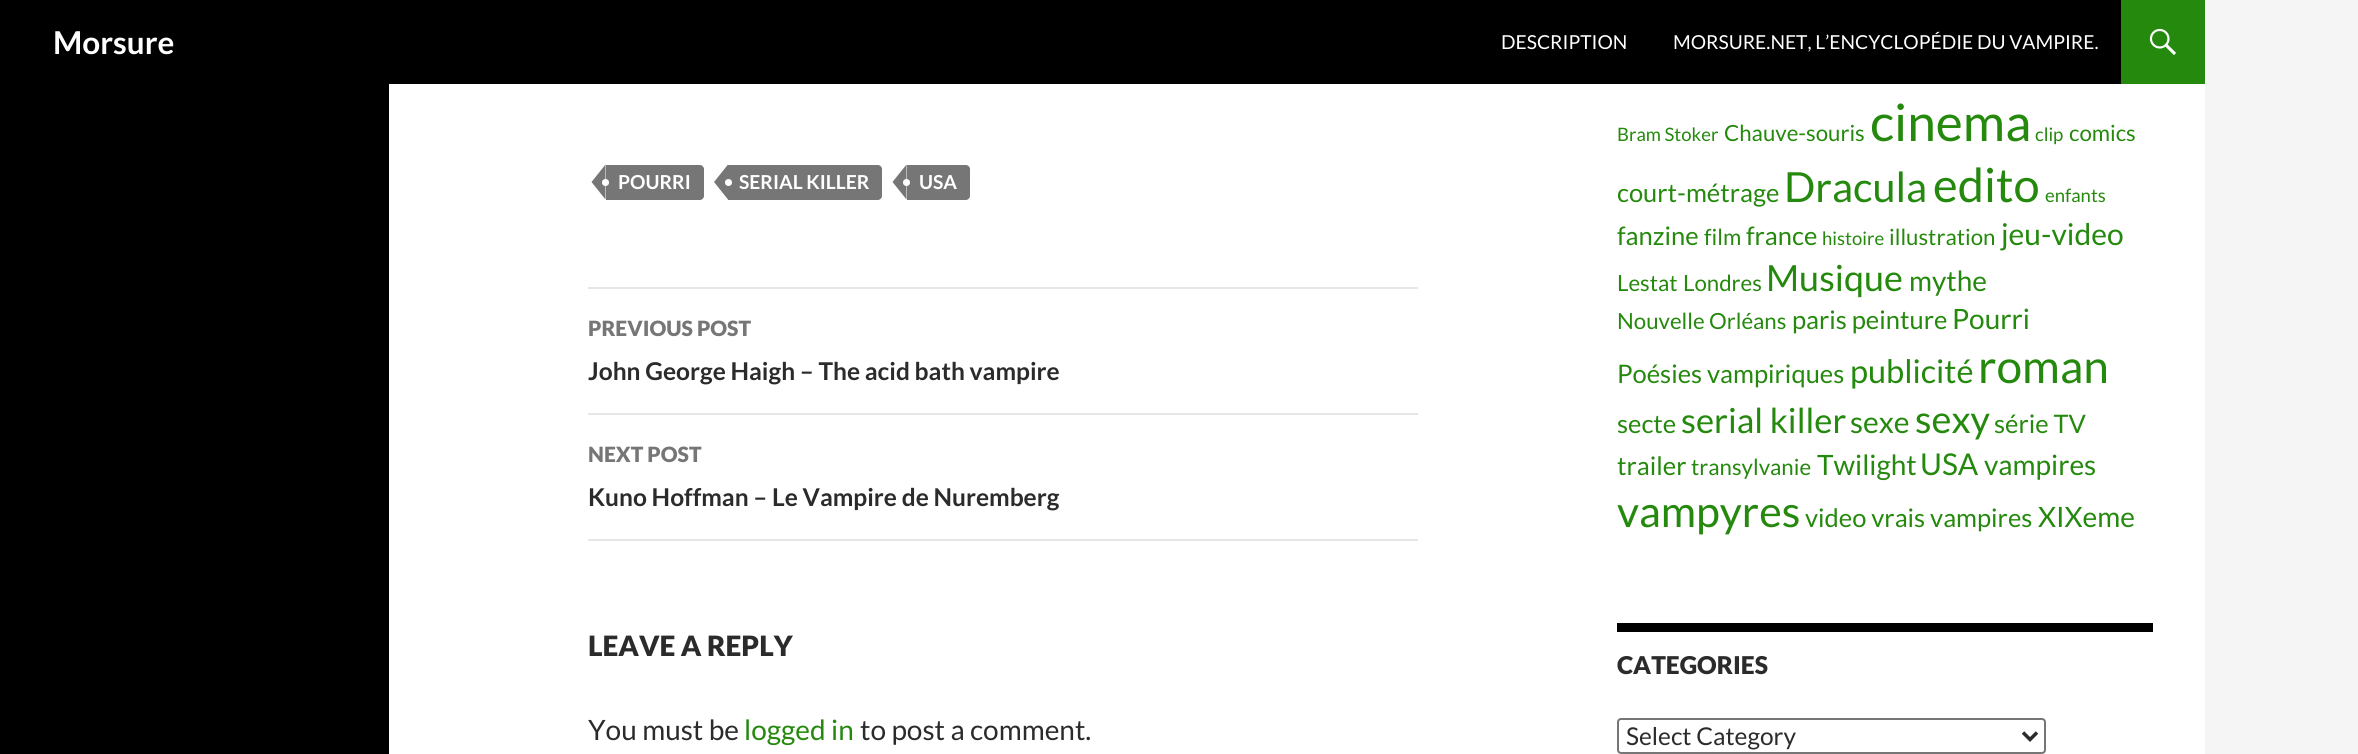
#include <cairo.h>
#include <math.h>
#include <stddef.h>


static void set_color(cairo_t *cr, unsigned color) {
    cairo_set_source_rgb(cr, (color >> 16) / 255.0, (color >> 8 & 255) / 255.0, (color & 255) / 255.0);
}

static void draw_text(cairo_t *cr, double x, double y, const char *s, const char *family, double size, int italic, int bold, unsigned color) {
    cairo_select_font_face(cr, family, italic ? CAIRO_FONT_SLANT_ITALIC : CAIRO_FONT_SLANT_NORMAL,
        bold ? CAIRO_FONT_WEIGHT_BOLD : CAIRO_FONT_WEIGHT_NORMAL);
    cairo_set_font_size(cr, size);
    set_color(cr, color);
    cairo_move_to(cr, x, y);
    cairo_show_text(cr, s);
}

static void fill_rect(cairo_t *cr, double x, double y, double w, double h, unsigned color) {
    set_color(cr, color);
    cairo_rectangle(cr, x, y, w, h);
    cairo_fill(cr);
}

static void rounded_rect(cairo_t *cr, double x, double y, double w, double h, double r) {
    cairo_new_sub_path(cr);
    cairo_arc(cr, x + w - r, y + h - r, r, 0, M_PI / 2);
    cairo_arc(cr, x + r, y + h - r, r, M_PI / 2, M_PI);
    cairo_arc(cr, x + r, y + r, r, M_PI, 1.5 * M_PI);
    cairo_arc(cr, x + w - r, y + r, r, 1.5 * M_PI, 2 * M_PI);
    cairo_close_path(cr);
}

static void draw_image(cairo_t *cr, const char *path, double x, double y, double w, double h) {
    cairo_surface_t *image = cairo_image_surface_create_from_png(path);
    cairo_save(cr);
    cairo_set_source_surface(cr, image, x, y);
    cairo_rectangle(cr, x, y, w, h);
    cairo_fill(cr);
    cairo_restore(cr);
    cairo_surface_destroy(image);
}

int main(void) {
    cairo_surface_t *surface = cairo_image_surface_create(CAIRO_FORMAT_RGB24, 2358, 754);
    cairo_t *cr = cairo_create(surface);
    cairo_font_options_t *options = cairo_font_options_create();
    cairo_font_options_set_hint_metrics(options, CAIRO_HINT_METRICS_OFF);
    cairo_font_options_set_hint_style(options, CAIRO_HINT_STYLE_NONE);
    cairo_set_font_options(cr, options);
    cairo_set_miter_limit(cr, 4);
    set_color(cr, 0xF5F5F5);
    cairo_paint(cr);
    fill_rect(cr, 389, 84, 1816, 670, 0xFFFFFF);
    fill_rect(cr, 0, 0, 2121, 84, 0x000000);
    draw_text(cr, 53, 54, "Morsure", "Lato", 31.5, 0, 1, 0xFFFFFF);
    draw_text(cr, 1501, 49, "DESCRIPTION", "Lato", 19.25, 0, 0, 0xFFFFFF);
    draw_text(cr, 1673, 49, "MORSURE.NET, L’ENCYCLOPÉDIE DU VAMPIRE.", "Lato", 19.25, 0, 0, 0xFFFFFF);
    fill_rect(cr, 2121, 0, 84, 84, 0x24890D);
    draw_image(cr, "assets/img1.png", 2149, 28, 27, 27);
    fill_rect(cr, 0, 84, 389, 670, 0x000000);
    set_color(cr, 0x767676);
    cairo_new_path(cr);
    cairo_move_to(cr, 606, 165);
    cairo_line_to(cr, 700, 165);
    cairo_curve_to(cr, 702, 165, 704, 167, 704, 169);
    cairo_line_to(cr, 704, 196);
    cairo_curve_to(cr, 704, 198, 702, 200, 700, 200);
    cairo_line_to(cr, 606, 200);
    cairo_close_path(cr);
    cairo_fill(cr);
    cairo_new_path(cr);
    cairo_move_to(cr, 605.5, 164.5);
    cairo_line_to(cr, 605.5, 199.5);
    cairo_line_to(cr, 591.5, 182);
    cairo_close_path(cr);
    cairo_fill(cr);
    draw_text(cr, 618, 189, "POURRI", "Lato", 19.25, 0, 1, 0xFFFFFF);
    cairo_new_path(cr);
    cairo_arc(cr, 605.5, 182.5, 3.5, 0, 2 * M_PI);
    cairo_fill(cr);
    set_color(cr, 0x767676);
    cairo_new_path(cr);
    cairo_move_to(cr, 728, 165);
    cairo_line_to(cr, 878, 165);
    cairo_curve_to(cr, 880, 165, 882, 167, 882, 169);
    cairo_line_to(cr, 882, 196);
    cairo_curve_to(cr, 882, 198, 880, 200, 878, 200);
    cairo_line_to(cr, 728, 200);
    cairo_close_path(cr);
    cairo_fill(cr);
    cairo_new_path(cr);
    cairo_move_to(cr, 728, 164.5);
    cairo_line_to(cr, 728, 199.5);
    cairo_line_to(cr, 714, 182);
    cairo_close_path(cr);
    cairo_fill(cr);
    set_color(cr, 0xFFFFFF);
    cairo_arc(cr, 728.5, 182.5, 3.5, 0, 2 * M_PI);
    cairo_fill(cr);
    draw_text(cr, 739, 189, "SERIAL KILLER", "Lato", 19.25, 0, 1, 0xFFFFFF);
    set_color(cr, 0x767676);
    cairo_new_path(cr);
    cairo_move_to(cr, 907, 165);
    cairo_line_to(cr, 966, 165);
    cairo_curve_to(cr, 968, 165, 970, 167, 970, 169);
    cairo_line_to(cr, 970, 196);
    cairo_curve_to(cr, 970, 198, 968, 200, 966, 200);
    cairo_line_to(cr, 907, 200);
    cairo_close_path(cr);
    cairo_fill(cr);
    cairo_new_path(cr);
    cairo_move_to(cr, 906.5, 164.5);
    cairo_line_to(cr, 906.5, 199.5);
    cairo_line_to(cr, 892.5, 182);
    cairo_close_path(cr);
    cairo_fill(cr);
    draw_text(cr, 919, 189, "USA", "Lato", 19.25, 0, 1, 0xFFFFFF);
    cairo_new_path(cr);
    cairo_arc(cr, 906.5, 182.5, 3.5, 0, 2 * M_PI);
    cairo_fill(cr);
    fill_rect(cr, 588, 287, 830, 2, 0xE6E6E6);
    fill_rect(cr, 588, 413, 830, 2, 0xE6E6E6);
    draw_text(cr, 588, 336, "PREVIOUS POST", "Lato Black", 21, 0, 0, 0x767676);
    draw_text(cr, 588, 380, "John George Haigh – The acid bath vampire", "Lato", 24.5, 0, 1, 0x2B2B2B);
    fill_rect(cr, 588, 539, 830, 2, 0xE6E6E6);
    draw_text(cr, 588, 462, "NEXT POST", "Lato Black", 21, 0, 0, 0x767676);
    draw_text(cr, 588, 506, "Kuno Hoffman – Le Vampire de Nuremberg", "Lato", 24.5, 0, 1, 0x2B2B2B);
    draw_text(cr, 588, 656, "LEAVE A REPLY", "Lato Black", 28, 0, 0, 0x2B2B2B);
    draw_text(cr, 588, 740, "You must be", "Lato", 28, 0, 0, 0x2B2B2B);
    draw_text(cr, 744, 740, "logged in", "Lato", 28, 0, 0, 0x24890D);
    draw_text(cr, 860, 740, "to post a comment.", "Lato", 28, 0, 0, 0x2B2B2B);
    draw_text(cr, 1617, 141, "Bram Stoker", "Lato", 18.5, 0, 0, 0x24890D);
    draw_text(cr, 1724, 141, "Chauve-souris", "Lato", 22.25, 0, 0, 0x24890D);
    draw_text(cr, 1870, 141, "cinema", "Lato", 51.5, 0, 0, 0x24890D);
    draw_text(cr, 2035, 141, "clip", "Lato", 18.5, 0, 0, 0x24890D);
    draw_text(cr, 2069, 141, "comics", "Lato", 22.25, 0, 0, 0x24890D);
    draw_text(cr, 1617, 202, "court-métrage", "Lato", 25.5, 0, 0, 0x24890D);
    draw_text(cr, 1784, 202, "Dracula", "Lato", 41.5, 0, 0, 0x24890D);
    draw_text(cr, 1933, 202, "edito", "Lato", 47, 0, 0, 0x24890D);
    draw_text(cr, 2045, 202, "enfants", "Lato", 18.5, 0, 0, 0x24890D);
    draw_text(cr, 1617, 245, "fanzine", "Lato", 25.5, 0, 0, 0x24890D);
    draw_text(cr, 1704, 245, "film", "Lato", 22.25, 0, 0, 0x24890D);
    draw_text(cr, 1746, 245, "france", "Lato", 25.5, 0, 0, 0x24890D);
    draw_text(cr, 1822, 245, "histoire", "Lato", 18.5, 0, 0, 0x24890D);
    draw_text(cr, 1889, 245, "illustration", "Lato", 22.25, 0, 0, 0x24890D);
    draw_text(cr, 2001, 245, "jeu-video", "Lato", 30, 0, 0, 0x24890D);
    draw_text(cr, 1617, 291, "Lestat", "Lato", 22.25, 0, 0, 0x24890D);
    draw_text(cr, 1683, 291, "Londres", "Lato", 22.25, 0, 0, 0x24890D);
    draw_text(cr, 1766, 291, "Musique", "Lato", 36, 0, 0, 0x24890D);
    draw_text(cr, 1909, 291, "mythe", "Lato", 28, 0, 0, 0x24890D);
    draw_text(cr, 1617, 329, "Nouvelle Orléans", "Lato", 22.25, 0, 0, 0x24890D);
    draw_text(cr, 1792, 329, "paris peinture", "Lato", 25.5, 0, 0, 0x24890D);
    draw_text(cr, 1952, 329, "Pourri", "Lato", 28, 0, 0, 0x24890D);
    draw_text(cr, 1617, 383, "Poésies vampiriques", "Lato", 25.5, 0, 0, 0x24890D);
    draw_text(cr, 1850, 383, "publicité", "Lato", 32.5, 0, 0, 0x24890D);
    draw_text(cr, 1978, 383, "roman", "Lato", 46, 0, 0, 0x24890D);
    draw_text(cr, 1617, 433, "secte", "Lato", 25.5, 0, 0, 0x24890D);
    draw_text(cr, 1681, 433, "serial killer", "Lato", 34.5, 0, 0, 0x24890D);
    draw_text(cr, 1850, 433, "sexe", "Lato", 30, 0, 0, 0x24890D);
    draw_text(cr, 1915, 433, "sexy", "Lato", 38, 0, 0, 0x24890D);
    draw_text(cr, 1994, 433, "série TV", "Lato", 25.5, 0, 0, 0x24890D);
    draw_text(cr, 1617, 475, "trailer", "Lato", 25.5, 0, 0, 0x24890D);
    draw_text(cr, 1691, 475, "transylvanie", "Lato", 22.25, 0, 0, 0x24890D);
    draw_text(cr, 1817, 475, "Twilight", "Lato", 28, 0, 0, 0x24890D);
    draw_text(cr, 1920, 475, "USA", "Lato", 30, 0, 0, 0x24890D);
    draw_text(cr, 1984, 475, "vampires", "Lato", 28, 0, 0, 0x24890D);
    draw_text(cr, 1617, 527, "vampyres", "Lato", 43, 0, 0, 0x24890D);
    draw_text(cr, 1805, 527, "video vrais vampires", "Lato", 25.5, 0, 0, 0x24890D);
    draw_text(cr, 2038, 527, "XIXeme", "Lato", 28, 0, 0, 0x24890D);
    fill_rect(cr, 1617, 623, 536, 9, 0x000000);
    draw_text(cr, 1617, 674, "CATEGORIES", "Lato Black", 24.5, 0, 0, 0x2B2B2B);
    rounded_rect(cr, 1618, 719, 427, 34, 3);
    set_color(cr, 0x767676);
    cairo_stroke(cr);
    cairo_new_path(cr);
    cairo_move_to(cr, 2023, 732.5);
    cairo_line_to(cr, 2030, 739.5);
    cairo_line_to(cr, 2037, 732.5);
    set_color(cr, 0x2B2B2B);
    cairo_set_line_width(cr, 3.5);
    cairo_stroke(cr);
    draw_text(cr, 1626, 745, "Select Category", "Lato", 24.5, 0, 0, 0x2B2B2B);
    cairo_surface_write_to_png(surface, "output.png");
    cairo_font_options_destroy(options);
    cairo_destroy(cr);
    cairo_surface_destroy(surface);
    return 0;
}
